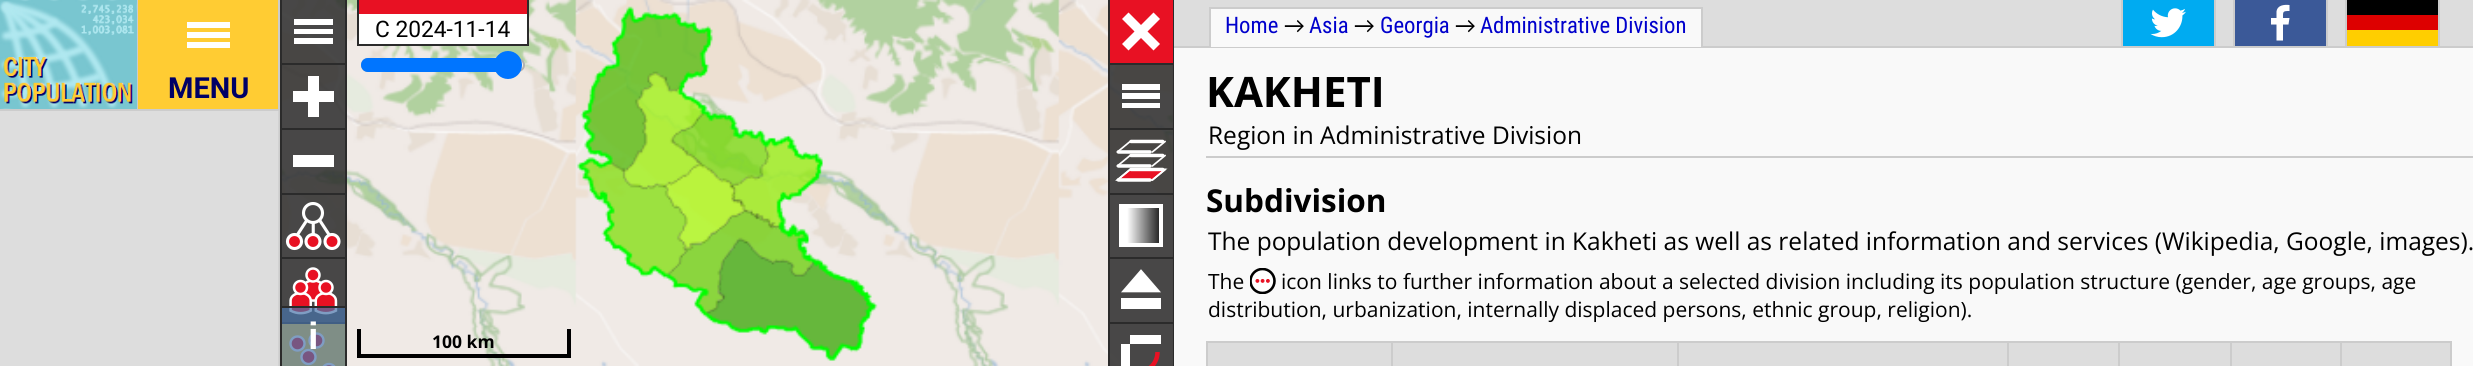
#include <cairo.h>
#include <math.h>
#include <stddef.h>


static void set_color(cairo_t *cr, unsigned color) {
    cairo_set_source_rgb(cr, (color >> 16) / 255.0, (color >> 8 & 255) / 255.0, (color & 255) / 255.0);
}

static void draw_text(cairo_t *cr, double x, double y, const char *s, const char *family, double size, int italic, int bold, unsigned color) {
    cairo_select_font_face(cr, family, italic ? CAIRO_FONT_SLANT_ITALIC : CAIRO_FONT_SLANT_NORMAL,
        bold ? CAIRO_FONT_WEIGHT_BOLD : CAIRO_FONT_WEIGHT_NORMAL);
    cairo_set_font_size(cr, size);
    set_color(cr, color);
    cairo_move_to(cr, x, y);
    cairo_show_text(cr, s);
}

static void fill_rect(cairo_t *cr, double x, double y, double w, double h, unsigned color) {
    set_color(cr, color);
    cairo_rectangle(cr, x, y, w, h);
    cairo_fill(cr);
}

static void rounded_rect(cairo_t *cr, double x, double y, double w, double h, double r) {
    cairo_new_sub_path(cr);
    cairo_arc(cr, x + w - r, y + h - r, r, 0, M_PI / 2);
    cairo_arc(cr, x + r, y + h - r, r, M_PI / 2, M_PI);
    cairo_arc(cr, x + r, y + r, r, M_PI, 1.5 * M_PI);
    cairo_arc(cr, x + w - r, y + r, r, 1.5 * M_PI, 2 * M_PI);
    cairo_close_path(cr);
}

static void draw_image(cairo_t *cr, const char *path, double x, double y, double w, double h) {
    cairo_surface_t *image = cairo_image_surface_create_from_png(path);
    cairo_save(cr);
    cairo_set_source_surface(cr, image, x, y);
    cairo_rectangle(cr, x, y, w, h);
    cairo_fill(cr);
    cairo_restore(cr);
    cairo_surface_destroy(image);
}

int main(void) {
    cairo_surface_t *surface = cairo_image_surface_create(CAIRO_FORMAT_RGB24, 2473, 366);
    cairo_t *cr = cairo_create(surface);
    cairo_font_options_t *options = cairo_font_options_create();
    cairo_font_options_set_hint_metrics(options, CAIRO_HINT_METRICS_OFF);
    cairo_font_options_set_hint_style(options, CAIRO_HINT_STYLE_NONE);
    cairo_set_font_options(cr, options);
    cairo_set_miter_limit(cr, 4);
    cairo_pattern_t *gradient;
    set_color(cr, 0xF9F9F9);
    cairo_paint(cr);
    cairo_rectangle(cr, 281, -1, 892, 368);
    set_color(cr, 0xCCCCCC);
    cairo_stroke(cr);
    draw_image(cr, "assets/img4.png", 282, 0, 891, 366);
    cairo_set_source_rgba(cr, 0.169, 0.169, 0.169, 0.4);
    cairo_rectangle(cr, 282, 0, 63, 322);
    cairo_fill(cr);
    cairo_set_source_rgba(cr, 0.169, 0.169, 0.169, 0.75);
    cairo_rectangle(cr, 282, 0, 63, 63);
    cairo_fill(cr);
    fill_rect(cr, 280, 63, 67, 2, 0x2B2B2B);
    fill_rect(cr, 280, 0, 2, 63, 0x2B2B2B);
    fill_rect(cr, 294, 19, 39, 6, 0xFFFFFF);
    fill_rect(cr, 345, 0, 2, 63, 0x2B2B2B);
    fill_rect(cr, 294, 29, 39, 5, 0xFFFFFF);
    fill_rect(cr, 294, 38, 39, 6, 0xFFFFFF);
    cairo_set_source_rgba(cr, 0.169, 0.169, 0.169, 0.75);
    cairo_rectangle(cr, 282, 65, 63, 63);
    cairo_fill(cr);
    fill_rect(cr, 280, 128, 67, 2, 0x2B2B2B);
    fill_rect(cr, 280, 65, 2, 63, 0x2B2B2B);
    fill_rect(cr, 293, 91, 41, 11, 0xFFFFFF);
    fill_rect(cr, 308, 76, 11, 41, 0xFFFFFF);
    fill_rect(cr, 345, 65, 2, 63, 0x2B2B2B);
    cairo_set_source_rgba(cr, 0.169, 0.169, 0.169, 0.75);
    cairo_rectangle(cr, 282, 130, 63, 63);
    cairo_fill(cr);
    fill_rect(cr, 280, 193, 67, 2, 0x2B2B2B);
    fill_rect(cr, 280, 130, 2, 63, 0x2B2B2B);
    fill_rect(cr, 293, 155, 41, 12, 0xFFFFFF);
    fill_rect(cr, 345, 130, 2, 63, 0x2B2B2B);
    cairo_set_source_rgba(cr, 0.169, 0.169, 0.169, 0.75);
    cairo_rectangle(cr, 282, 195, 63, 62);
    cairo_fill(cr);
    fill_rect(cr, 280, 257, 67, 2, 0x2B2B2B);
    fill_rect(cr, 280, 194, 2, 63, 0x2B2B2B);
    draw_image(cr, "assets/img1.png", 285, 202, 56, 49);
    fill_rect(cr, 345, 194, 2, 63, 0x2B2B2B);
    cairo_set_source_rgba(cr, 0.169, 0.169, 0.169, 0.75);
    cairo_rectangle(cr, 282, 259, 63, 63);
    cairo_fill(cr);
    fill_rect(cr, 280, 322, 67, 2, 0x2B2B2B);
    fill_rect(cr, 280, 259, 2, 47, 0x2B2B2B);
    draw_image(cr, "assets/img2.png", 289, 267, 49, 48);
    fill_rect(cr, 345, 259, 2, 47, 0x2B2B2B);
    fill_rect(cr, 282, 324, 63, 42, 0xFFCC33);
    set_color(cr, 0xE81123);
    cairo_arc(cr, 297.5, 343.5, 7, 0, 2 * M_PI);
    cairo_fill_preserve(cr);
    set_color(cr, 0xFFFFFF);
    cairo_set_line_width(cr, 2.4);
    cairo_stroke(cr);
    set_color(cr, 0xE81123);
    cairo_arc(cr, 316.5, 340.5, 7, 0, 2 * M_PI);
    cairo_fill_preserve(cr);
    set_color(cr, 0xFFFFFF);
    cairo_stroke(cr);
    set_color(cr, 0xE81123);
    cairo_arc(cr, 308.5, 357, 7, 0, 2 * M_PI);
    cairo_fill_preserve(cr);
    set_color(cr, 0xFFFFFF);
    cairo_stroke(cr);
    set_color(cr, 0xE81123);
    cairo_arc(cr, 329, 371, 7, 0, 2 * M_PI);
    cairo_fill_preserve(cr);
    set_color(cr, 0xFFFFFF);
    cairo_stroke(cr);
    fill_rect(cr, 359, 0, 168, 14, 0xE81123);
    fill_rect(cr, 527, 0, 2, 46, 0x2B2B2B);
    fill_rect(cr, 357, 44, 172, 2, 0x2B2B2B);
    fill_rect(cr, 357, 0, 2, 46, 0x2B2B2B);
    fill_rect(cr, 359, 14, 168, 30, 0xFFFFFF);
    draw_text(cr, 375, 37, "C 2024-11-14", "Roboto", 22.75, 0, 0, 0x000000);
    set_color(cr, 0xEFEFEF);
    rounded_rect(cr, 362, 59, 162, 12, 6);
    cairo_fill_preserve(cr);
    set_color(cr, 0xB2B2B2);
    cairo_set_line_width(cr, 2);
    cairo_stroke(cr);
    set_color(cr, 0x0075FF);
    cairo_new_path(cr);
    cairo_move_to(cr, 368, 58);
    cairo_line_to(cr, 508, 58);
    cairo_line_to(cr, 508, 72);
    cairo_line_to(cr, 368, 72);
    cairo_curve_to(cr, 364, 72, 361, 69, 361, 65);
    cairo_curve_to(cr, 361, 61, 364, 58, 368, 58);
    cairo_close_path(cr);
    cairo_fill(cr);
    cairo_arc(cr, 508, 65, 14, 0, 2 * M_PI);
    cairo_fill(cr);
    cairo_set_source_rgba(cr, 0.169, 0.169, 0.169, 0.4);
    cairo_rectangle(cr, 1110, 65, 63, 301);
    cairo_fill(cr);
    fill_rect(cr, 1110, 0, 63, 63, 0xE81123);
    fill_rect(cr, 1108, 63, 66, 2, 0x2B2B2B);
    fill_rect(cr, 1108, 0, 2, 63, 0x2B2B2B);
    set_color(cr, 0xFFFFFF);
    cairo_new_path(cr);
    cairo_move_to(cr, 1128.5, 12.5);
    cairo_line_to(cr, 1141, 25);
    cairo_line_to(cr, 1153.5, 12.5);
    cairo_line_to(cr, 1160, 19);
    cairo_line_to(cr, 1147.5, 31.5);
    cairo_line_to(cr, 1160, 44);
    cairo_line_to(cr, 1153.5, 50.5);
    cairo_line_to(cr, 1141, 38);
    cairo_line_to(cr, 1128.5, 50.5);
    cairo_line_to(cr, 1122, 44);
    cairo_line_to(cr, 1134.5, 31.5);
    cairo_line_to(cr, 1122, 19);
    cairo_close_path(cr);
    cairo_fill(cr);
    fill_rect(cr, 1173, 0, 1, 63, 0x2B2B2B);
    cairo_set_source_rgba(cr, 0.169, 0.169, 0.169, 0.75);
    cairo_rectangle(cr, 1110, 65, 63, 63);
    cairo_fill(cr);
    fill_rect(cr, 1108, 128, 66, 2, 0x2B2B2B);
    fill_rect(cr, 1108, 65, 2, 63, 0x2B2B2B);
    fill_rect(cr, 1122, 84, 38, 6, 0xFFFFFF);
    fill_rect(cr, 1173, 65, 1, 63, 0x2B2B2B);
    fill_rect(cr, 1122, 93, 38, 6, 0xFFFFFF);
    fill_rect(cr, 1122, 103, 38, 5, 0xFFFFFF);
    cairo_set_source_rgba(cr, 0.169, 0.169, 0.169, 0.75);
    cairo_rectangle(cr, 1110, 130, 63, 63);
    cairo_fill(cr);
    fill_rect(cr, 1108, 193, 66, 2, 0x2B2B2B);
    fill_rect(cr, 1108, 130, 2, 63, 0x2B2B2B);
    draw_image(cr, "assets/img3.png", 1115, 139, 53, 43);
    fill_rect(cr, 1173, 130, 1, 63, 0x2B2B2B);
    cairo_set_source_rgba(cr, 0.169, 0.169, 0.169, 0.75);
    cairo_rectangle(cr, 1110, 195, 63, 62);
    cairo_fill(cr);
    fill_rect(cr, 1108, 257, 66, 2, 0x2B2B2B);
    fill_rect(cr, 1108, 194, 2, 63, 0x2B2B2B);
    gradient = cairo_pattern_create_linear(1121, 206, 1165, 206);
    cairo_pattern_add_color_stop_rgba(gradient, 0.14, 1, 1, 1, 1);
    cairo_pattern_add_color_stop_rgba(gradient, 1, 0, 0, 0, 1);
    cairo_set_source(cr, gradient);
    cairo_pattern_destroy(gradient);
    cairo_rectangle(cr, 1123, 208, 36, 35);
    cairo_fill(cr);
    cairo_rectangle(cr, 1121, 206, 40, 39);
    set_color(cr, 0xFFFFFF);
    cairo_set_line_width(cr, 4);
    cairo_stroke(cr);
    fill_rect(cr, 1173, 194, 1, 63, 0x2B2B2B);
    cairo_set_source_rgba(cr, 0.169, 0.169, 0.169, 0.75);
    cairo_rectangle(cr, 1110, 259, 63, 63);
    cairo_fill(cr);
    fill_rect(cr, 1108, 322, 66, 2, 0x2B2B2B);
    fill_rect(cr, 1108, 259, 2, 63, 0x2B2B2B);
    set_color(cr, 0xFFFFFF);
    cairo_new_path(cr);
    cairo_move_to(cr, 1125, 290.5);
    cairo_line_to(cr, 1157, 290.5);
    cairo_line_to(cr, 1141, 272);
    cairo_close_path(cr);
    cairo_fill_preserve(cr);
    cairo_set_line_width(cr, 3.7);
    cairo_stroke(cr);
    fill_rect(cr, 1173, 259, 1, 63, 0x2B2B2B);
    fill_rect(cr, 1121, 298, 40, 11, 0xFFFFFF);
    cairo_set_source_rgba(cr, 0.169, 0.169, 0.169, 0.75);
    cairo_rectangle(cr, 1110, 324, 63, 42);
    cairo_fill(cr);
    fill_rect(cr, 1108, 324, 2, 42, 0x2B2B2B);
    fill_rect(cr, 1130, 335, 31, 9, 0xFFFFFF);
    fill_rect(cr, 1173, 324, 1, 42, 0x2B2B2B);
    fill_rect(cr, 1121, 344, 9, 22, 0xFFFFFF);
    cairo_new_path(cr);
    cairo_move_to(cr, 1138, 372);
    cairo_curve_to(cr, 1149, 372, 1157.5, 363, 1157.5, 352);
    cairo_move_to(cr, 1157.5, 352);
    cairo_curve_to(cr, 1157.5, 363, 1149, 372, 1138, 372);
    set_color(cr, 0xE81123);
    cairo_set_line_width(cr, 4.5);
    cairo_stroke(cr);
    cairo_set_source_rgba(cr, 1, 1, 1, 0.4);
    cairo_rectangle(cr, 282, 308, 63, 58);
    cairo_fill(cr);
    cairo_set_source_rgba(cr, 0, 0.235, 0.533, 0.5);
    cairo_rectangle(cr, 281, 307, 65, 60);
    cairo_fill_preserve(cr);
    set_color(cr, 0x2B2B2B);
    cairo_set_line_width(cr, 2);
    cairo_stroke(cr);
    draw_text(cr, 308, 349, "i", "Liberation Sans", 38, 0, 1, 0xFFFFFF);
    fill_rect(cr, 567, 329, 4, 28, 0x000000);
    fill_rect(cr, 357, 354, 214, 4, 0x000000);
    fill_rect(cr, 357, 329, 4, 28, 0x000000);
    draw_text(cr, 432, 348, "100 km", "Open Sans", 17.5, 0, 1, 0x000000);
    fill_rect(cr, 1174, 0, 1299, 46, 0xDDDDDD);
    fill_rect(cr, 1174, 46, 1299, 2, 0xCCCCCC);
    fill_rect(cr, 1211, 9, 490, 38, 0xF9F9F9);
    fill_rect(cr, 1209, 7, 494, 2, 0xCCCCCC);
    fill_rect(cr, 1701, 7, 2, 40, 0xCCCCCC);
    fill_rect(cr, 1209, 7, 2, 40, 0xCCCCCC);
    draw_text(cr, 1225, 33, "Home", "Roboto Condensed", 22.75, 0, 0, 0x0000CC);
    draw_text(cr, 1284, 33, "→", "Carlito", 22.75, 0, 0, 0x000000);
    draw_text(cr, 1309, 33, "Asia", "Roboto Condensed", 22.75, 0, 0, 0x0000CC);
    draw_text(cr, 1354, 33, "→", "Carlito", 22.75, 0, 0, 0x000000);
    draw_text(cr, 1380, 33, "Georgia", "Roboto Condensed", 22.75, 0, 0, 0x0000CC);
    draw_text(cr, 1455, 33, "→", "Carlito", 22.75, 0, 0, 0x000000);
    draw_text(cr, 1480, 33, "Administrative Division", "Roboto Condensed", 22.75, 0, 0, 0x0000CC);
    fill_rect(cr, 2121, 0, 2, 47, 0xCCCCCC);
    draw_image(cr, "assets/img5.png", 2123, 0, 91, 46);
    fill_rect(cr, 2214, 0, 2, 47, 0xCCCCCC);
    fill_rect(cr, 2233, 0, 2, 47, 0xCCCCCC);
    fill_rect(cr, 2235, 0, 91, 46, 0x3B5998);
    fill_rect(cr, 2326, 0, 2, 47, 0xCCCCCC);
    set_color(cr, 0xFFFFFF);
    cairo_new_path(cr);
    cairo_move_to(cr, 2283, 40.5);
    cairo_line_to(cr, 2283, 24.5);
    cairo_line_to(cr, 2288.5, 24.5);
    cairo_line_to(cr, 2289.5, 18);
    cairo_line_to(cr, 2283, 18);
    cairo_curve_to(cr, 2283, 11.5, 2282.5, 11, 2289.5, 11);
    cairo_line_to(cr, 2289.5, 5);
    cairo_curve_to(cr, 2284, 4.5, 2277.5, 5, 2276.5, 11.5);
    cairo_line_to(cr, 2276.5, 18);
    cairo_line_to(cr, 2271, 18);
    cairo_line_to(cr, 2271, 24.5);
    cairo_line_to(cr, 2276.5, 24.5);
    cairo_line_to(cr, 2276.5, 40.5);
    cairo_close_path(cr);
    cairo_fill(cr);
    fill_rect(cr, 2345, 0, 2, 47, 0xCCCCCC);
    fill_rect(cr, 2347, 0, 91, 15, 0x000000);
    fill_rect(cr, 2438, 0, 2, 47, 0xCCCCCC);
    fill_rect(cr, 2347, 15, 91, 15, 0xDD0000);
    fill_rect(cr, 2347, 30, 91, 16, 0xFFCE00);
    draw_image(cr, "assets/img6.png", 0, 0, 137, 109);
    fill_rect(cr, 137, 0, 1, 110, 0xCCCCCC);
    fill_rect(cr, 0, 109, 138, 2, 0xCCCCCC);
    fill_rect(cr, 138, 0, 140, 109, 0xFFCC33);
    fill_rect(cr, 278, 0, 2, 110, 0xCCCCCC);
    fill_rect(cr, 138, 109, 142, 2, 0xCCCCCC);
    fill_rect(cr, 187, 22, 43, 6, 0xFFFFFF);
    fill_rect(cr, 187, 32, 43, 6, 0xFFFFFF);
    fill_rect(cr, 187, 42, 43, 6, 0xFFFFFF);
    draw_text(cr, 168, 98, "MENU", "Roboto", 29, 0, 1, 0x000066);
    fill_rect(cr, 1206, 156, 1267, 2, 0xCCCCCC);
    draw_text(cr, 1206, 107, "KAKHETI", "Open Sans", 42, 0, 1, 0x000000);
    draw_text(cr, 1208, 144, "Region in Administrative Division", "Open Sans", 24.5, 0, 0, 0x000000);
    draw_text(cr, 1206, 212, "Subdivision", "Open Sans", 31.5, 0, 1, 0x000000);
    draw_text(cr, 1208, 250, "The population development in Kakheti as well as related information and services (Wikipedia, Google, images).", "Open Sans", 24.5, 0, 0, 0x000000);
    draw_text(cr, 1208, 289, "The", "Open Sans", 21, 0, 0, 0x000000);
    draw_image(cr, "assets/img7.png", 1250, 268, 26, 26);
    draw_text(cr, 1281, 289, "icon links to further information about a selected division including its population structure (gender, age groups, age", "Open Sans", 21, 0, 0, 0x000000);
    draw_text(cr, 1208, 317, "distribution, urbanization, internally displaced persons, ethnic group, religion).", "Open Sans", 21, 0, 0, 0x000000);
    fill_rect(cr, 1206, 341, 1246, 2, 0xCCCCCC);
    fill_rect(cr, 2450, 341, 2, 25, 0xCCCCCC);
    fill_rect(cr, 1206, 341, 2, 25, 0xCCCCCC);
    fill_rect(cr, 1208, 343, 183, 23, 0xDDDDDD);
    fill_rect(cr, 1393, 343, 284, 23, 0xDDDDDD);
    fill_rect(cr, 1391, 341, 2, 25, 0xCCCCCC);
    fill_rect(cr, 1679, 343, 328, 23, 0xDDDDDD);
    fill_rect(cr, 1677, 341, 2, 25, 0xCCCCCC);
    fill_rect(cr, 2009, 343, 109, 23, 0xDDDDDD);
    fill_rect(cr, 2007, 341, 2, 25, 0xCCCCCC);
    fill_rect(cr, 2120, 343, 110, 23, 0xDDDDDD);
    fill_rect(cr, 2118, 341, 2, 25, 0xCCCCCC);
    fill_rect(cr, 2232, 343, 108, 23, 0xDDDDDD);
    fill_rect(cr, 2230, 341, 2, 25, 0xCCCCCC);
    fill_rect(cr, 2342, 343, 108, 23, 0xDDDDDD);
    fill_rect(cr, 2340, 341, 2, 25, 0xCCCCCC);
    fill_rect(cr, 0, 111, 278, 255, 0xDDDDDD);
    draw_image(cr, "assets/img8.png", 278, 111, 2, 255);
    cairo_surface_write_to_png(surface, "output.png");
    cairo_font_options_destroy(options);
    cairo_destroy(cr);
    cairo_surface_destroy(surface);
    return 0;
}
